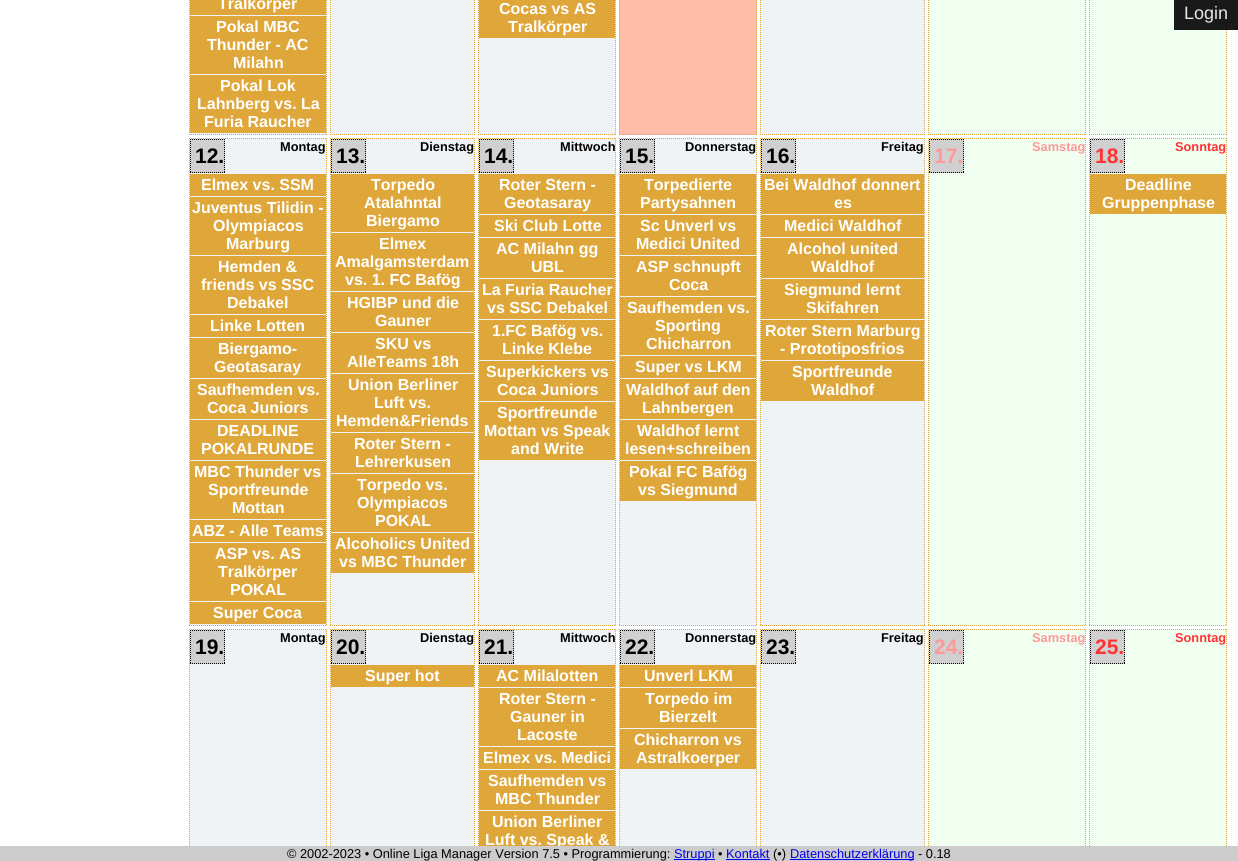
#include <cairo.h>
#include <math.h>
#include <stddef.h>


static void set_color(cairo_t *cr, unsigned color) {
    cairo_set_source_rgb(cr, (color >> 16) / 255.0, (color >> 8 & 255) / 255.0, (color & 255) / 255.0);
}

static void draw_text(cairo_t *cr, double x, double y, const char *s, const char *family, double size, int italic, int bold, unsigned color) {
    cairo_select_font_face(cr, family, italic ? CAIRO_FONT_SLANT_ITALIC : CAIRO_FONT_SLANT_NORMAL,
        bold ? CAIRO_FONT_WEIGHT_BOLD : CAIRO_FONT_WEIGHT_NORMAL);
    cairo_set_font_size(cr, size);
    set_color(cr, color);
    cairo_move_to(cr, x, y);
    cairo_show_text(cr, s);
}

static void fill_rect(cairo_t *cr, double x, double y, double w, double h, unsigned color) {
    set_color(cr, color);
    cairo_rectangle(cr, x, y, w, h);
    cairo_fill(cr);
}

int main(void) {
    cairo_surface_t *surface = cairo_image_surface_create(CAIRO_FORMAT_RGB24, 1238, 861);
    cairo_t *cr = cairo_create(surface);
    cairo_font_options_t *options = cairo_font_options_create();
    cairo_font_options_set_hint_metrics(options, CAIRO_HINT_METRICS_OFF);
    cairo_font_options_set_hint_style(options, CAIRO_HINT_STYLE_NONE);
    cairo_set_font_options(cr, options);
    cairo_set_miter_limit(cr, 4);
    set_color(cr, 0xFFFFFF);
    cairo_paint(cr);
    fill_rect(cr, 189, 1, 138, 134, 0xF0F3F6);
    cairo_new_path(cr);
    cairo_move_to(cr, 326.5, -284);
    cairo_line_to(cr, 326.5, 135);
    set_color(cr, 0xDFA73A);
    cairo_set_line_width(cr, 1);
    cairo_set_dash(cr, (double[]){1, 1}, 2, 0);
    cairo_stroke(cr);
    cairo_new_path(cr);
    cairo_move_to(cr, 189, 134.5);
    cairo_line_to(cr, 327, 134.5);
    cairo_stroke(cr);
    cairo_new_path(cr);
    cairo_move_to(cr, 189.5, -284);
    cairo_line_to(cr, 189.5, 135);
    cairo_stroke(cr);
    fill_rect(cr, 190, 0, 136, 15, 0xDFA73A);
    draw_text(cr, 218, 9, "Tralkörper", "Liberation Sans", 16, 0, 1, 0xFFFFFF);
    fill_rect(cr, 190, 16, 136, 58, 0xDFA73A);
    draw_text(cr, 216, 32, "Pokal MBC", "Liberation Sans", 16, 0, 1, 0xFFFFFF);
    draw_text(cr, 207, 50, "Thunder - AC", "Liberation Sans", 16, 0, 1, 0xFFFFFF);
    draw_text(cr, 233, 68, "Milahn", "Liberation Sans", 16, 0, 1, 0xFFFFFF);
    fill_rect(cr, 190, 75, 136, 58, 0xDFA73A);
    draw_text(cr, 220, 91, "Pokal Lok", "Liberation Sans", 16, 0, 1, 0xFFFFFF);
    draw_text(cr, 197, 109, "Lahnberg vs. La", "Liberation Sans", 16, 0, 1, 0xFFFFFF);
    draw_text(cr, 204, 127, "Furia Raucher", "Liberation Sans", 16, 0, 1, 0xFFFFFF);
    fill_rect(cr, 330, 0, 145, 135, 0xF0F3F6);
    cairo_new_path(cr);
    cairo_move_to(cr, 474.5, -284);
    cairo_line_to(cr, 474.5, 135);
    set_color(cr, 0xDFA73A);
    cairo_stroke(cr);
    cairo_new_path(cr);
    cairo_move_to(cr, 330, 134.5);
    cairo_line_to(cr, 475, 134.5);
    cairo_stroke(cr);
    cairo_new_path(cr);
    cairo_move_to(cr, 330.5, -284);
    cairo_line_to(cr, 330.5, 135);
    cairo_stroke(cr);
    fill_rect(cr, 478, 1, 138, 134, 0xF0F3F6);
    cairo_new_path(cr);
    cairo_move_to(cr, 615.5, -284);
    cairo_line_to(cr, 615.5, 135);
    set_color(cr, 0xDFA73A);
    cairo_stroke(cr);
    cairo_new_path(cr);
    cairo_move_to(cr, 478, 134.5);
    cairo_line_to(cr, 616, 134.5);
    cairo_stroke(cr);
    cairo_new_path(cr);
    cairo_move_to(cr, 478.5, -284);
    cairo_line_to(cr, 478.5, 135);
    cairo_stroke(cr);
    fill_rect(cr, 479, 0, 136, 38, 0xDFA73A);
    draw_text(cr, 499, 14, "Cocas vs AS", "Liberation Sans", 16, 0, 1, 0xFFFFFF);
    draw_text(cr, 508, 32, "Tralkörper", "Liberation Sans", 16, 0, 1, 0xFFFFFF);
    fill_rect(cr, 619, 0, 138, 135, 0xFFBDAA);
    cairo_new_path(cr);
    cairo_move_to(cr, 756.5, -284);
    cairo_line_to(cr, 756.5, 135);
    set_color(cr, 0xDFA73A);
    cairo_stroke(cr);
    cairo_new_path(cr);
    cairo_move_to(cr, 619, 134.5);
    cairo_line_to(cr, 757, 134.5);
    cairo_stroke(cr);
    cairo_new_path(cr);
    cairo_move_to(cr, 619.5, -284);
    cairo_line_to(cr, 619.5, 135);
    cairo_stroke(cr);
    fill_rect(cr, 760, 0, 165, 135, 0xF0F3F6);
    cairo_new_path(cr);
    cairo_move_to(cr, 924.5, -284);
    cairo_line_to(cr, 924.5, 135);
    set_color(cr, 0xDFA73A);
    cairo_stroke(cr);
    cairo_new_path(cr);
    cairo_move_to(cr, 760, 134.5);
    cairo_line_to(cr, 925, 134.5);
    cairo_stroke(cr);
    cairo_new_path(cr);
    cairo_move_to(cr, 760.5, -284);
    cairo_line_to(cr, 760.5, 135);
    cairo_stroke(cr);
    fill_rect(cr, 928, 0, 158, 135, 0xF0FFF0);
    cairo_new_path(cr);
    cairo_move_to(cr, 1085.5, -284);
    cairo_line_to(cr, 1085.5, 135);
    set_color(cr, 0xDFA73A);
    cairo_stroke(cr);
    cairo_new_path(cr);
    cairo_move_to(cr, 928, 134.5);
    cairo_line_to(cr, 1086, 134.5);
    cairo_stroke(cr);
    cairo_new_path(cr);
    cairo_move_to(cr, 928.5, -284);
    cairo_line_to(cr, 928.5, 135);
    cairo_stroke(cr);
    fill_rect(cr, 1089, 0, 138, 135, 0xF0FFF0);
    cairo_new_path(cr);
    cairo_move_to(cr, 1226.5, -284);
    cairo_line_to(cr, 1226.5, 135);
    set_color(cr, 0xDFA73A);
    cairo_stroke(cr);
    cairo_new_path(cr);
    cairo_move_to(cr, 1089, 134.5);
    cairo_line_to(cr, 1227, 134.5);
    cairo_stroke(cr);
    cairo_new_path(cr);
    cairo_move_to(cr, 1089.5, -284);
    cairo_line_to(cr, 1089.5, 135);
    cairo_stroke(cr);
    fill_rect(cr, 189, 138, 138, 488, 0xF0F3F6);
    cairo_new_path(cr);
    cairo_move_to(cr, 189, 138.5);
    cairo_line_to(cr, 327, 138.5);
    set_color(cr, 0xDFA73A);
    cairo_stroke(cr);
    cairo_new_path(cr);
    cairo_move_to(cr, 326.5, 138);
    cairo_line_to(cr, 326.5, 626);
    cairo_stroke(cr);
    cairo_new_path(cr);
    cairo_move_to(cr, 189, 625.5);
    cairo_line_to(cr, 327, 625.5);
    cairo_stroke(cr);
    cairo_new_path(cr);
    cairo_move_to(cr, 189.5, 138);
    cairo_line_to(cr, 189.5, 626);
    cairo_stroke(cr);
    fill_rect(cr, 190, 139, 35, 34, 0xD0D0D0);
    cairo_new_path(cr);
    cairo_move_to(cr, 190, 139.5);
    cairo_line_to(cr, 225, 139.5);
    cairo_move_to(cr, 224.5, 139);
    cairo_line_to(cr, 224.5, 173);
    cairo_move_to(cr, 190, 172.5);
    cairo_line_to(cr, 225, 172.5);
    cairo_move_to(cr, 190.5, 139);
    cairo_line_to(cr, 190.5, 173);
    set_color(cr, 0x000000);
    cairo_stroke(cr);
    draw_text(cr, 195, 163, "12.", "Liberation Sans", 21, 0, 1, 0x000000);
    draw_text(cr, 280, 151, "Montag", "Liberation Sans", 12.8, 0, 1, 0x000000);
    fill_rect(cr, 190, 174, 136, 22, 0xDFA73A);
    draw_text(cr, 201, 190, "Elmex vs. SSM", "Liberation Sans", 16, 0, 1, 0xFFFFFF);
    fill_rect(cr, 190, 197, 136, 58, 0xDFA73A);
    draw_text(cr, 192, 213, "Juventus Tilidin -", "Liberation Sans", 16, 0, 1, 0xFFFFFF);
    draw_text(cr, 213, 231, "Olympiacos", "Liberation Sans", 16, 0, 1, 0xFFFFFF);
    draw_text(cr, 226, 249, "Marburg", "Liberation Sans", 16, 0, 1, 0xFFFFFF);
    fill_rect(cr, 190, 256, 136, 58, 0xDFA73A);
    draw_text(cr, 218, 272, "Hemden &", "Liberation Sans", 16, 0, 1, 0xFFFFFF);
    draw_text(cr, 201, 290, "friends vs SSC", "Liberation Sans", 16, 0, 1, 0xFFFFFF);
    draw_text(cr, 227, 308, "Debakel", "Liberation Sans", 16, 0, 1, 0xFFFFFF);
    fill_rect(cr, 190, 315, 136, 22, 0xDFA73A);
    draw_text(cr, 210, 331, "Linke Lotten", "Liberation Sans", 16, 0, 1, 0xFFFFFF);
    fill_rect(cr, 190, 338, 136, 40, 0xDFA73A);
    draw_text(cr, 218, 354, "Biergamo-", "Liberation Sans", 16, 0, 1, 0xFFFFFF);
    draw_text(cr, 214, 372, "Geotasaray", "Liberation Sans", 16, 0, 1, 0xFFFFFF);
    fill_rect(cr, 190, 379, 136, 40, 0xDFA73A);
    draw_text(cr, 197, 395, "Saufhemden vs.", "Liberation Sans", 16, 0, 1, 0xFFFFFF);
    draw_text(cr, 207, 413, "Coca Juniors", "Liberation Sans", 16, 0, 1, 0xFFFFFF);
    fill_rect(cr, 190, 420, 136, 40, 0xDFA73A);
    draw_text(cr, 217, 436, "DEADLINE", "Liberation Sans", 16, 0, 1, 0xFFFFFF);
    draw_text(cr, 201, 454, "POKALRUNDE", "Liberation Sans", 16, 0, 1, 0xFFFFFF);
    fill_rect(cr, 190, 461, 136, 58, 0xDFA73A);
    draw_text(cr, 194, 477, "MBC Thunder vs", "Liberation Sans", 16, 0, 1, 0xFFFFFF);
    draw_text(cr, 208, 495, "Sportfreunde", "Liberation Sans", 16, 0, 1, 0xFFFFFF);
    draw_text(cr, 232, 513, "Mottan", "Liberation Sans", 16, 0, 1, 0xFFFFFF);
    fill_rect(cr, 190, 520, 136, 22, 0xDFA73A);
    draw_text(cr, 192, 536, "ABZ - Alle Teams", "Liberation Sans", 16, 0, 1, 0xFFFFFF);
    fill_rect(cr, 190, 543, 136, 58, 0xDFA73A);
    draw_text(cr, 215, 559, "ASP vs. AS", "Liberation Sans", 16, 0, 1, 0xFFFFFF);
    draw_text(cr, 218, 577, "Tralkörper", "Liberation Sans", 16, 0, 1, 0xFFFFFF);
    draw_text(cr, 230, 595, "POKAL", "Liberation Sans", 16, 0, 1, 0xFFFFFF);
    fill_rect(cr, 190, 602, 136, 22, 0xDFA73A);
    draw_text(cr, 213, 618, "Super Coca", "Liberation Sans", 16, 0, 1, 0xFFFFFF);
    fill_rect(cr, 330, 138, 145, 488, 0xF0F3F6);
    cairo_new_path(cr);
    cairo_move_to(cr, 330, 138.5);
    cairo_line_to(cr, 475, 138.5);
    set_color(cr, 0xDFA73A);
    cairo_stroke(cr);
    cairo_new_path(cr);
    cairo_move_to(cr, 474.5, 138);
    cairo_line_to(cr, 474.5, 626);
    cairo_stroke(cr);
    cairo_new_path(cr);
    cairo_move_to(cr, 330, 625.5);
    cairo_line_to(cr, 475, 625.5);
    cairo_stroke(cr);
    cairo_new_path(cr);
    cairo_move_to(cr, 330.5, 138);
    cairo_line_to(cr, 330.5, 626);
    cairo_stroke(cr);
    fill_rect(cr, 331, 139, 35, 34, 0xD0D0D0);
    cairo_new_path(cr);
    cairo_move_to(cr, 331, 139.5);
    cairo_line_to(cr, 366, 139.5);
    cairo_move_to(cr, 365.5, 139);
    cairo_line_to(cr, 365.5, 173);
    cairo_move_to(cr, 331, 172.5);
    cairo_line_to(cr, 366, 172.5);
    cairo_move_to(cr, 331.5, 139);
    cairo_line_to(cr, 331.5, 173);
    set_color(cr, 0x000000);
    cairo_stroke(cr);
    draw_text(cr, 336, 163, "13.", "Liberation Sans", 21, 0, 1, 0x000000);
    draw_text(cr, 420, 151, "Dienstag", "Liberation Sans", 12.8, 0, 1, 0x000000);
    fill_rect(cr, 331, 174, 143, 58, 0xDFA73A);
    draw_text(cr, 371, 190, "Torpedo", "Liberation Sans", 16, 0, 1, 0xFFFFFF);
    draw_text(cr, 364, 208, "Atalahntal", "Liberation Sans", 16, 0, 1, 0xFFFFFF);
    draw_text(cr, 366, 226, "Biergamo", "Liberation Sans", 16, 0, 1, 0xFFFFFF);
    fill_rect(cr, 331, 233, 143, 58, 0xDFA73A);
    draw_text(cr, 379, 249, "Elmex", "Liberation Sans", 16, 0, 1, 0xFFFFFF);
    draw_text(cr, 335, 267, "Amalgamsterdam", "Liberation Sans", 16, 0, 1, 0xFFFFFF);
    draw_text(cr, 345, 285, "vs. 1. FC Bafög", "Liberation Sans", 16, 0, 1, 0xFFFFFF);
    fill_rect(cr, 331, 292, 143, 40, 0xDFA73A);
    draw_text(cr, 347, 308, "HGIBP und die", "Liberation Sans", 16, 0, 1, 0xFFFFFF);
    draw_text(cr, 375, 326, "Gauner", "Liberation Sans", 16, 0, 1, 0xFFFFFF);
    fill_rect(cr, 331, 333, 143, 40, 0xDFA73A);
    draw_text(cr, 375, 349, "SKU vs", "Liberation Sans", 16, 0, 1, 0xFFFFFF);
    draw_text(cr, 347, 367, "AlleTeams 18h", "Liberation Sans", 16, 0, 1, 0xFFFFFF);
    fill_rect(cr, 331, 374, 143, 58, 0xDFA73A);
    draw_text(cr, 348, 390, "Union Berliner", "Liberation Sans", 16, 0, 1, 0xFFFFFF);
    draw_text(cr, 374, 408, "Luft vs.", "Liberation Sans", 16, 0, 1, 0xFFFFFF);
    draw_text(cr, 336, 426, "Hemden&Friends", "Liberation Sans", 16, 0, 1, 0xFFFFFF);
    fill_rect(cr, 331, 433, 143, 40, 0xDFA73A);
    draw_text(cr, 354, 449, "Roter Stern -", "Liberation Sans", 16, 0, 1, 0xFFFFFF);
    draw_text(cr, 355, 467, "Lehrerkusen", "Liberation Sans", 16, 0, 1, 0xFFFFFF);
    fill_rect(cr, 331, 474, 143, 58, 0xDFA73A);
    draw_text(cr, 357, 490, "Torpedo vs.", "Liberation Sans", 16, 0, 1, 0xFFFFFF);
    draw_text(cr, 357, 508, "Olympiacos", "Liberation Sans", 16, 0, 1, 0xFFFFFF);
    draw_text(cr, 375, 526, "POKAL", "Liberation Sans", 16, 0, 1, 0xFFFFFF);
    fill_rect(cr, 331, 533, 143, 40, 0xDFA73A);
    draw_text(cr, 335, 549, "Alcoholics United", "Liberation Sans", 16, 0, 1, 0xFFFFFF);
    draw_text(cr, 339, 567, "vs MBC Thunder", "Liberation Sans", 16, 0, 1, 0xFFFFFF);
    fill_rect(cr, 478, 138, 138, 488, 0xF0F3F6);
    cairo_new_path(cr);
    cairo_move_to(cr, 478, 138.5);
    cairo_line_to(cr, 616, 138.5);
    set_color(cr, 0xDFA73A);
    cairo_stroke(cr);
    cairo_new_path(cr);
    cairo_move_to(cr, 615.5, 138);
    cairo_line_to(cr, 615.5, 626);
    cairo_stroke(cr);
    cairo_new_path(cr);
    cairo_move_to(cr, 478, 625.5);
    cairo_line_to(cr, 616, 625.5);
    cairo_stroke(cr);
    cairo_new_path(cr);
    cairo_move_to(cr, 478.5, 138);
    cairo_line_to(cr, 478.5, 626);
    cairo_stroke(cr);
    draw_text(cr, 560, 151, "Mittwoch", "Liberation Sans", 12.8, 0, 1, 0x000000);
    fill_rect(cr, 479, 139, 35, 34, 0xD0D0D0);
    cairo_new_path(cr);
    cairo_move_to(cr, 479, 139.5);
    cairo_line_to(cr, 514, 139.5);
    cairo_move_to(cr, 513.5, 139);
    cairo_line_to(cr, 513.5, 173);
    cairo_move_to(cr, 479, 172.5);
    cairo_line_to(cr, 514, 172.5);
    cairo_move_to(cr, 479.5, 139);
    cairo_line_to(cr, 479.5, 173);
    set_color(cr, 0x000000);
    cairo_stroke(cr);
    draw_text(cr, 484, 163, "14.", "Liberation Sans", 21, 0, 1, 0x000000);
    fill_rect(cr, 479, 174, 136, 40, 0xDFA73A);
    draw_text(cr, 499, 190, "Roter Stern -", "Liberation Sans", 16, 0, 1, 0xFFFFFF);
    draw_text(cr, 504, 208, "Geotasaray", "Liberation Sans", 16, 0, 1, 0xFFFFFF);
    fill_rect(cr, 479, 215, 136, 22, 0xDFA73A);
    draw_text(cr, 494, 231, "Ski Club Lotte", "Liberation Sans", 16, 0, 1, 0xFFFFFF);
    fill_rect(cr, 479, 238, 136, 40, 0xDFA73A);
    draw_text(cr, 496, 254, "AC Milahn gg", "Liberation Sans", 16, 0, 1, 0xFFFFFF);
    draw_text(cr, 531, 272, "UBL", "Liberation Sans", 16, 0, 1, 0xFFFFFF);
    fill_rect(cr, 479, 279, 136, 40, 0xDFA73A);
    draw_text(cr, 482, 295, "La Furia Raucher", "Liberation Sans", 16, 0, 1, 0xFFFFFF);
    draw_text(cr, 487, 313, "vs SSC Debakel", "Liberation Sans", 16, 0, 1, 0xFFFFFF);
    fill_rect(cr, 479, 320, 136, 40, 0xDFA73A);
    draw_text(cr, 492, 336, "1.FC Bafög vs.", "Liberation Sans", 16, 0, 1, 0xFFFFFF);
    draw_text(cr, 502, 354, "Linke Klebe", "Liberation Sans", 16, 0, 1, 0xFFFFFF);
    fill_rect(cr, 479, 361, 136, 40, 0xDFA73A);
    draw_text(cr, 486, 377, "Superkickers vs", "Liberation Sans", 16, 0, 1, 0xFFFFFF);
    draw_text(cr, 497, 395, "Coca Juniors", "Liberation Sans", 16, 0, 1, 0xFFFFFF);
    fill_rect(cr, 479, 402, 136, 58, 0xDFA73A);
    draw_text(cr, 497, 418, "Sportfreunde", "Liberation Sans", 16, 0, 1, 0xFFFFFF);
    draw_text(cr, 484, 436, "Mottan vs Speak", "Liberation Sans", 16, 0, 1, 0xFFFFFF);
    draw_text(cr, 511, 454, "and Write", "Liberation Sans", 16, 0, 1, 0xFFFFFF);
    fill_rect(cr, 619, 138, 138, 488, 0xF0F3F6);
    cairo_new_path(cr);
    cairo_move_to(cr, 619, 138.5);
    cairo_line_to(cr, 757, 138.5);
    set_color(cr, 0xDFA73A);
    cairo_stroke(cr);
    cairo_new_path(cr);
    cairo_move_to(cr, 756.5, 138);
    cairo_line_to(cr, 756.5, 626);
    cairo_stroke(cr);
    cairo_new_path(cr);
    cairo_move_to(cr, 619, 625.5);
    cairo_line_to(cr, 757, 625.5);
    cairo_stroke(cr);
    cairo_new_path(cr);
    cairo_move_to(cr, 619.5, 138);
    cairo_line_to(cr, 619.5, 626);
    cairo_stroke(cr);
    fill_rect(cr, 620, 139, 35, 34, 0xD0D0D0);
    cairo_new_path(cr);
    cairo_move_to(cr, 620, 139.5);
    cairo_line_to(cr, 655, 139.5);
    cairo_move_to(cr, 654.5, 139);
    cairo_line_to(cr, 654.5, 173);
    cairo_move_to(cr, 620, 172.5);
    cairo_line_to(cr, 655, 172.5);
    cairo_move_to(cr, 620.5, 139);
    cairo_line_to(cr, 620.5, 173);
    set_color(cr, 0x000000);
    cairo_stroke(cr);
    draw_text(cr, 625, 163, "15.", "Liberation Sans", 21, 0, 1, 0x000000);
    draw_text(cr, 685, 151, "Donnerstag", "Liberation Sans", 12.8, 0, 1, 0x000000);
    fill_rect(cr, 620, 174, 136, 40, 0xDFA73A);
    draw_text(cr, 644, 190, "Torpedierte", "Liberation Sans", 16, 0, 1, 0xFFFFFF);
    draw_text(cr, 640, 208, "Partysahnen", "Liberation Sans", 16, 0, 1, 0xFFFFFF);
    fill_rect(cr, 620, 215, 136, 40, 0xDFA73A);
    draw_text(cr, 640, 231, "Sc Unverl vs", "Liberation Sans", 16, 0, 1, 0xFFFFFF);
    draw_text(cr, 636, 249, "Medici United", "Liberation Sans", 16, 0, 1, 0xFFFFFF);
    fill_rect(cr, 620, 256, 136, 40, 0xDFA73A);
    draw_text(cr, 636, 272, "ASP schnupft", "Liberation Sans", 16, 0, 1, 0xFFFFFF);
    draw_text(cr, 669, 290, "Coca", "Liberation Sans", 16, 0, 1, 0xFFFFFF);
    fill_rect(cr, 620, 297, 136, 58, 0xDFA73A);
    draw_text(cr, 627, 313, "Saufhemden vs.", "Liberation Sans", 16, 0, 1, 0xFFFFFF);
    draw_text(cr, 655, 331, "Sporting", "Liberation Sans", 16, 0, 1, 0xFFFFFF);
    draw_text(cr, 646, 349, "Chicharron", "Liberation Sans", 16, 0, 1, 0xFFFFFF);
    fill_rect(cr, 620, 356, 136, 22, 0xDFA73A);
    draw_text(cr, 635, 372, "Super vs LKM", "Liberation Sans", 16, 0, 1, 0xFFFFFF);
    fill_rect(cr, 620, 379, 136, 40, 0xDFA73A);
    draw_text(cr, 626, 395, "Waldhof auf den", "Liberation Sans", 16, 0, 1, 0xFFFFFF);
    draw_text(cr, 642, 413, "Lahnbergen", "Liberation Sans", 16, 0, 1, 0xFFFFFF);
    fill_rect(cr, 620, 420, 136, 40, 0xDFA73A);
    draw_text(cr, 637, 436, "Waldhof lernt", "Liberation Sans", 16, 0, 1, 0xFFFFFF);
    draw_text(cr, 625, 454, "lesen+schreiben", "Liberation Sans", 16, 0, 1, 0xFFFFFF);
    fill_rect(cr, 620, 461, 136, 40, 0xDFA73A);
    draw_text(cr, 629, 477, "Pokal FC Bafög", "Liberation Sans", 16, 0, 1, 0xFFFFFF);
    draw_text(cr, 638, 495, "vs Siegmund", "Liberation Sans", 16, 0, 1, 0xFFFFFF);
    fill_rect(cr, 760, 138, 165, 488, 0xF0F3F6);
    cairo_new_path(cr);
    cairo_move_to(cr, 760, 138.5);
    cairo_line_to(cr, 925, 138.5);
    set_color(cr, 0xDFA73A);
    cairo_stroke(cr);
    cairo_new_path(cr);
    cairo_move_to(cr, 924.5, 138);
    cairo_line_to(cr, 924.5, 626);
    cairo_stroke(cr);
    cairo_new_path(cr);
    cairo_move_to(cr, 760, 625.5);
    cairo_line_to(cr, 925, 625.5);
    cairo_stroke(cr);
    cairo_new_path(cr);
    cairo_move_to(cr, 760.5, 138);
    cairo_line_to(cr, 760.5, 626);
    cairo_stroke(cr);
    fill_rect(cr, 761, 139, 35, 34, 0xD0D0D0);
    cairo_new_path(cr);
    cairo_move_to(cr, 761, 139.5);
    cairo_line_to(cr, 796, 139.5);
    cairo_move_to(cr, 795.5, 139);
    cairo_line_to(cr, 795.5, 173);
    cairo_move_to(cr, 761, 172.5);
    cairo_line_to(cr, 796, 172.5);
    cairo_move_to(cr, 761.5, 139);
    cairo_line_to(cr, 761.5, 173);
    set_color(cr, 0x000000);
    cairo_stroke(cr);
    draw_text(cr, 766, 163, "16.", "Liberation Sans", 21, 0, 1, 0x000000);
    draw_text(cr, 881, 151, "Freitag", "Liberation Sans", 12.8, 0, 1, 0x000000);
    fill_rect(cr, 761, 174, 163, 40, 0xDFA73A);
    draw_text(cr, 764, 190, "Bei Waldhof donnert", "Liberation Sans", 16, 0, 1, 0xFFFFFF);
    draw_text(cr, 834, 208, "es", "Liberation Sans", 16, 0, 1, 0xFFFFFF);
    fill_rect(cr, 761, 215, 163, 22, 0xDFA73A);
    draw_text(cr, 784, 231, "Medici Waldhof", "Liberation Sans", 16, 0, 1, 0xFFFFFF);
    fill_rect(cr, 761, 238, 163, 40, 0xDFA73A);
    draw_text(cr, 787, 254, "Alcohol united", "Liberation Sans", 16, 0, 1, 0xFFFFFF);
    draw_text(cr, 811, 272, "Waldhof", "Liberation Sans", 16, 0, 1, 0xFFFFFF);
    fill_rect(cr, 761, 279, 163, 40, 0xDFA73A);
    draw_text(cr, 784, 295, "Siegmund lernt", "Liberation Sans", 16, 0, 1, 0xFFFFFF);
    draw_text(cr, 806, 313, "Skifahren", "Liberation Sans", 16, 0, 1, 0xFFFFFF);
    fill_rect(cr, 761, 320, 163, 40, 0xDFA73A);
    draw_text(cr, 765, 336, "Roter Stern Marburg", "Liberation Sans", 16, 0, 1, 0xFFFFFF);
    draw_text(cr, 780, 354, "- Prototiposfrios", "Liberation Sans", 16, 0, 1, 0xFFFFFF);
    fill_rect(cr, 761, 361, 163, 40, 0xDFA73A);
    draw_text(cr, 792, 377, "Sportfreunde", "Liberation Sans", 16, 0, 1, 0xFFFFFF);
    draw_text(cr, 811, 395, "Waldhof", "Liberation Sans", 16, 0, 1, 0xFFFFFF);
    fill_rect(cr, 928, 138, 158, 488, 0xF0FFF0);
    cairo_new_path(cr);
    cairo_move_to(cr, 928, 138.5);
    cairo_line_to(cr, 1086, 138.5);
    set_color(cr, 0xDFA73A);
    cairo_stroke(cr);
    cairo_new_path(cr);
    cairo_move_to(cr, 1085.5, 138);
    cairo_line_to(cr, 1085.5, 626);
    cairo_stroke(cr);
    cairo_new_path(cr);
    cairo_move_to(cr, 928, 625.5);
    cairo_line_to(cr, 1086, 625.5);
    cairo_stroke(cr);
    cairo_new_path(cr);
    cairo_move_to(cr, 928.5, 138);
    cairo_line_to(cr, 928.5, 626);
    cairo_stroke(cr);
    fill_rect(cr, 929, 139, 35, 34, 0xD0D0D0);
    cairo_new_path(cr);
    cairo_move_to(cr, 929, 139.5);
    cairo_line_to(cr, 964, 139.5);
    cairo_move_to(cr, 963.5, 139);
    cairo_line_to(cr, 963.5, 173);
    cairo_move_to(cr, 929, 172.5);
    cairo_line_to(cr, 964, 172.5);
    cairo_move_to(cr, 929.5, 139);
    cairo_line_to(cr, 929.5, 173);
    set_color(cr, 0x000000);
    cairo_stroke(cr);
    draw_text(cr, 934, 163, "17.", "Liberation Sans", 21, 0, 1, 0xFF9999);
    draw_text(cr, 1032, 151, "Samstag", "Liberation Sans", 12.8, 0, 1, 0xFF9999);
    fill_rect(cr, 1089, 138, 138, 488, 0xF0FFF0);
    cairo_new_path(cr);
    cairo_move_to(cr, 1089, 138.5);
    cairo_line_to(cr, 1227, 138.5);
    set_color(cr, 0xDFA73A);
    cairo_stroke(cr);
    cairo_new_path(cr);
    cairo_move_to(cr, 1226.5, 138);
    cairo_line_to(cr, 1226.5, 626);
    cairo_stroke(cr);
    cairo_new_path(cr);
    cairo_move_to(cr, 1089, 625.5);
    cairo_line_to(cr, 1227, 625.5);
    cairo_stroke(cr);
    cairo_new_path(cr);
    cairo_move_to(cr, 1089.5, 138);
    cairo_line_to(cr, 1089.5, 626);
    cairo_stroke(cr);
    fill_rect(cr, 1090, 139, 35, 34, 0xD0D0D0);
    cairo_new_path(cr);
    cairo_move_to(cr, 1090, 139.5);
    cairo_line_to(cr, 1125, 139.5);
    cairo_move_to(cr, 1124.5, 139);
    cairo_line_to(cr, 1124.5, 173);
    cairo_move_to(cr, 1090, 172.5);
    cairo_line_to(cr, 1125, 172.5);
    cairo_move_to(cr, 1090.5, 139);
    cairo_line_to(cr, 1090.5, 173);
    set_color(cr, 0x000000);
    cairo_stroke(cr);
    draw_text(cr, 1095, 163, "18.", "Liberation Sans", 21, 0, 1, 0xFF3333);
    draw_text(cr, 1175, 151, "Sonntag", "Liberation Sans", 12.8, 0, 1, 0xFF3333);
    fill_rect(cr, 1090, 174, 136, 40, 0xDFA73A);
    draw_text(cr, 1125, 190, "Deadline", "Liberation Sans", 16, 0, 1, 0xFFFFFF);
    draw_text(cr, 1102, 208, "Gruppenphase", "Liberation Sans", 16, 0, 1, 0xFFFFFF);
    fill_rect(cr, 189, 629, 138, 217, 0xF0F3F6);
    cairo_new_path(cr);
    cairo_move_to(cr, 189, 629.5);
    cairo_line_to(cr, 327, 629.5);
    set_color(cr, 0xDFA73A);
    cairo_stroke(cr);
    cairo_new_path(cr);
    cairo_move_to(cr, 326.5, 629);
    cairo_line_to(cr, 326.5, 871);
    cairo_stroke(cr);
    cairo_new_path(cr);
    cairo_move_to(cr, 189.5, 629);
    cairo_line_to(cr, 189.5, 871);
    cairo_stroke(cr);
    fill_rect(cr, 190, 630, 35, 34, 0xD0D0D0);
    cairo_new_path(cr);
    cairo_move_to(cr, 190, 630.5);
    cairo_line_to(cr, 225, 630.5);
    cairo_move_to(cr, 224.5, 630);
    cairo_line_to(cr, 224.5, 664);
    cairo_move_to(cr, 190, 663.5);
    cairo_line_to(cr, 225, 663.5);
    cairo_move_to(cr, 190.5, 630);
    cairo_line_to(cr, 190.5, 664);
    set_color(cr, 0x000000);
    cairo_stroke(cr);
    draw_text(cr, 195, 654, "19.", "Liberation Sans", 21, 0, 1, 0x000000);
    draw_text(cr, 280, 642, "Montag", "Liberation Sans", 12.8, 0, 1, 0x000000);
    fill_rect(cr, 330, 629, 145, 217, 0xF0F3F6);
    cairo_new_path(cr);
    cairo_move_to(cr, 330, 629.5);
    cairo_line_to(cr, 475, 629.5);
    set_color(cr, 0xDFA73A);
    cairo_stroke(cr);
    cairo_new_path(cr);
    cairo_move_to(cr, 474.5, 629);
    cairo_line_to(cr, 474.5, 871);
    cairo_stroke(cr);
    cairo_new_path(cr);
    cairo_move_to(cr, 330.5, 629);
    cairo_line_to(cr, 330.5, 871);
    cairo_stroke(cr);
    fill_rect(cr, 331, 630, 35, 34, 0xD0D0D0);
    cairo_new_path(cr);
    cairo_move_to(cr, 331, 630.5);
    cairo_line_to(cr, 366, 630.5);
    cairo_move_to(cr, 365.5, 630);
    cairo_line_to(cr, 365.5, 664);
    cairo_move_to(cr, 331, 663.5);
    cairo_line_to(cr, 366, 663.5);
    cairo_move_to(cr, 331.5, 630);
    cairo_line_to(cr, 331.5, 664);
    set_color(cr, 0x000000);
    cairo_stroke(cr);
    draw_text(cr, 336, 654, "20.", "Liberation Sans", 21, 0, 1, 0x000000);
    draw_text(cr, 420, 642, "Dienstag", "Liberation Sans", 12.8, 0, 1, 0x000000);
    fill_rect(cr, 331, 665, 143, 22, 0xDFA73A);
    draw_text(cr, 365, 681, "Super hot", "Liberation Sans", 16, 0, 1, 0xFFFFFF);
    fill_rect(cr, 478, 629, 138, 216, 0xF0F3F6);
    cairo_new_path(cr);
    cairo_move_to(cr, 478, 629.5);
    cairo_line_to(cr, 616, 629.5);
    set_color(cr, 0xDFA73A);
    cairo_stroke(cr);
    cairo_new_path(cr);
    cairo_move_to(cr, 615.5, 629);
    cairo_line_to(cr, 615.5, 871);
    cairo_stroke(cr);
    cairo_new_path(cr);
    cairo_move_to(cr, 478.5, 629);
    cairo_line_to(cr, 478.5, 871);
    cairo_stroke(cr);
    draw_text(cr, 560, 642, "Mittwoch", "Liberation Sans", 12.8, 0, 1, 0x000000);
    fill_rect(cr, 479, 630, 35, 34, 0xD0D0D0);
    cairo_new_path(cr);
    cairo_move_to(cr, 479, 630.5);
    cairo_line_to(cr, 514, 630.5);
    cairo_move_to(cr, 513.5, 630);
    cairo_line_to(cr, 513.5, 664);
    cairo_move_to(cr, 479, 663.5);
    cairo_line_to(cr, 514, 663.5);
    cairo_move_to(cr, 479.5, 630);
    cairo_line_to(cr, 479.5, 664);
    set_color(cr, 0x000000);
    cairo_stroke(cr);
    draw_text(cr, 484, 654, "21.", "Liberation Sans", 21, 0, 1, 0x000000);
    fill_rect(cr, 479, 665, 136, 22, 0xDFA73A);
    draw_text(cr, 496, 681, "AC Milalotten", "Liberation Sans", 16, 0, 1, 0xFFFFFF);
    fill_rect(cr, 479, 688, 136, 58, 0xDFA73A);
    draw_text(cr, 499, 704, "Roter Stern -", "Liberation Sans", 16, 0, 1, 0xFFFFFF);
    draw_text(cr, 510, 722, "Gauner in", "Liberation Sans", 16, 0, 1, 0xFFFFFF);
    draw_text(cr, 517, 740, "Lacoste", "Liberation Sans", 16, 0, 1, 0xFFFFFF);
    fill_rect(cr, 479, 747, 136, 22, 0xDFA73A);
    draw_text(cr, 483, 763, "Elmex vs. Medici", "Liberation Sans", 16, 0, 1, 0xFFFFFF);
    fill_rect(cr, 479, 770, 136, 40, 0xDFA73A);
    draw_text(cr, 488, 786, "Saufhemden vs", "Liberation Sans", 16, 0, 1, 0xFFFFFF);
    draw_text(cr, 495, 804, "MBC Thunder", "Liberation Sans", 16, 0, 1, 0xFFFFFF);
    fill_rect(cr, 479, 811, 136, 35, 0xDFA73A);
    draw_text(cr, 492, 827, "Union Berliner", "Liberation Sans", 16, 0, 1, 0xFFFFFF);
    draw_text(cr, 485, 845, "Luft vs. Speak &", "Liberation Sans", 16, 0, 1, 0xFFFFFF);
    fill_rect(cr, 619, 629, 138, 217, 0xF0F3F6);
    cairo_new_path(cr);
    cairo_move_to(cr, 619, 629.5);
    cairo_line_to(cr, 757, 629.5);
    set_color(cr, 0xDFA73A);
    cairo_stroke(cr);
    cairo_new_path(cr);
    cairo_move_to(cr, 756.5, 629);
    cairo_line_to(cr, 756.5, 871);
    cairo_stroke(cr);
    cairo_new_path(cr);
    cairo_move_to(cr, 619.5, 629);
    cairo_line_to(cr, 619.5, 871);
    cairo_stroke(cr);
    fill_rect(cr, 620, 630, 35, 34, 0xD0D0D0);
    cairo_new_path(cr);
    cairo_move_to(cr, 620, 630.5);
    cairo_line_to(cr, 655, 630.5);
    cairo_move_to(cr, 654.5, 630);
    cairo_line_to(cr, 654.5, 664);
    cairo_move_to(cr, 620, 663.5);
    cairo_line_to(cr, 655, 663.5);
    cairo_move_to(cr, 620.5, 630);
    cairo_line_to(cr, 620.5, 664);
    set_color(cr, 0x000000);
    cairo_stroke(cr);
    draw_text(cr, 625, 654, "22.", "Liberation Sans", 21, 0, 1, 0x000000);
    draw_text(cr, 685, 642, "Donnerstag", "Liberation Sans", 12.8, 0, 1, 0x000000);
    fill_rect(cr, 620, 665, 136, 22, 0xDFA73A);
    draw_text(cr, 644, 681, "Unverl LKM", "Liberation Sans", 16, 0, 1, 0xFFFFFF);
    fill_rect(cr, 620, 688, 136, 40, 0xDFA73A);
    draw_text(cr, 645, 704, "Torpedo im", "Liberation Sans", 16, 0, 1, 0xFFFFFF);
    draw_text(cr, 659, 722, "Bierzelt", "Liberation Sans", 16, 0, 1, 0xFFFFFF);
    fill_rect(cr, 620, 729, 136, 40, 0xDFA73A);
    draw_text(cr, 634, 745, "Chicharron vs", "Liberation Sans", 16, 0, 1, 0xFFFFFF);
    draw_text(cr, 636, 763, "Astralkoerper", "Liberation Sans", 16, 0, 1, 0xFFFFFF);
    fill_rect(cr, 760, 629, 165, 217, 0xF0F3F6);
    cairo_new_path(cr);
    cairo_move_to(cr, 760, 629.5);
    cairo_line_to(cr, 925, 629.5);
    set_color(cr, 0xDFA73A);
    cairo_stroke(cr);
    cairo_new_path(cr);
    cairo_move_to(cr, 924.5, 629);
    cairo_line_to(cr, 924.5, 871);
    cairo_stroke(cr);
    cairo_new_path(cr);
    cairo_move_to(cr, 760.5, 629);
    cairo_line_to(cr, 760.5, 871);
    cairo_stroke(cr);
    fill_rect(cr, 761, 630, 35, 34, 0xD0D0D0);
    cairo_new_path(cr);
    cairo_move_to(cr, 761, 630.5);
    cairo_line_to(cr, 796, 630.5);
    cairo_move_to(cr, 795.5, 630);
    cairo_line_to(cr, 795.5, 664);
    cairo_move_to(cr, 761, 663.5);
    cairo_line_to(cr, 796, 663.5);
    cairo_move_to(cr, 761.5, 630);
    cairo_line_to(cr, 761.5, 664);
    set_color(cr, 0x000000);
    cairo_stroke(cr);
    draw_text(cr, 766, 654, "23.", "Liberation Sans", 21, 0, 1, 0x000000);
    draw_text(cr, 881, 642, "Freitag", "Liberation Sans", 12.8, 0, 1, 0x000000);
    fill_rect(cr, 928, 629, 158, 217, 0xF0FFF0);
    cairo_new_path(cr);
    cairo_move_to(cr, 928, 629.5);
    cairo_line_to(cr, 1086, 629.5);
    set_color(cr, 0xDFA73A);
    cairo_stroke(cr);
    cairo_new_path(cr);
    cairo_move_to(cr, 1085.5, 629);
    cairo_line_to(cr, 1085.5, 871);
    cairo_stroke(cr);
    cairo_new_path(cr);
    cairo_move_to(cr, 928.5, 629);
    cairo_line_to(cr, 928.5, 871);
    cairo_stroke(cr);
    fill_rect(cr, 929, 630, 35, 34, 0xD0D0D0);
    cairo_new_path(cr);
    cairo_move_to(cr, 929, 630.5);
    cairo_line_to(cr, 964, 630.5);
    cairo_move_to(cr, 963.5, 630);
    cairo_line_to(cr, 963.5, 664);
    cairo_move_to(cr, 929, 663.5);
    cairo_line_to(cr, 964, 663.5);
    cairo_move_to(cr, 929.5, 630);
    cairo_line_to(cr, 929.5, 664);
    set_color(cr, 0x000000);
    cairo_stroke(cr);
    draw_text(cr, 934, 654, "24.", "Liberation Sans", 21, 0, 1, 0xFF9999);
    draw_text(cr, 1032, 642, "Samstag", "Liberation Sans", 12.8, 0, 1, 0xFF9999);
    fill_rect(cr, 1089, 629, 138, 217, 0xF0FFF0);
    cairo_new_path(cr);
    cairo_move_to(cr, 1089, 629.5);
    cairo_line_to(cr, 1227, 629.5);
    set_color(cr, 0xDFA73A);
    cairo_stroke(cr);
    cairo_new_path(cr);
    cairo_move_to(cr, 1226.5, 629);
    cairo_line_to(cr, 1226.5, 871);
    cairo_stroke(cr);
    cairo_new_path(cr);
    cairo_move_to(cr, 1089.5, 629);
    cairo_line_to(cr, 1089.5, 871);
    cairo_stroke(cr);
    fill_rect(cr, 1090, 630, 35, 34, 0xD0D0D0);
    cairo_new_path(cr);
    cairo_move_to(cr, 1090, 630.5);
    cairo_line_to(cr, 1125, 630.5);
    cairo_move_to(cr, 1124.5, 630);
    cairo_line_to(cr, 1124.5, 664);
    cairo_move_to(cr, 1090, 663.5);
    cairo_line_to(cr, 1125, 663.5);
    cairo_move_to(cr, 1090.5, 630);
    cairo_line_to(cr, 1090.5, 664);
    set_color(cr, 0x000000);
    cairo_stroke(cr);
    draw_text(cr, 1095, 654, "25.", "Liberation Sans", 21, 0, 1, 0xFF3333);
    draw_text(cr, 1175, 642, "Sonntag", "Liberation Sans", 12.8, 0, 1, 0xFF3333);
    cairo_set_source_rgba(cr, 0, 0, 0, 0.9);
    cairo_rectangle(cr, 1174, 0, 64, 30);
    cairo_fill(cr);
    draw_text(cr, 1184, 19, "Login", "Liberation Sans", 18, 0, 0, 0xE8E8E8);
    fill_rect(cr, 0, 846, 1238, 15, 0xCCCCCC);
    draw_text(cr, 287, 858, "© 2002-2023 • Online Liga Manager Version 7.5 • Programmierung:", "Liberation Sans", 12.8, 0, 0, 0x000000);
    fill_rect(cr, 674, 859, 41, 1, 0x0000EE);
    draw_text(cr, 674, 858, "Struppi", "Liberation Sans", 12.8, 0, 0, 0x0000EE);
    draw_text(cr, 718, 858, "•", "Liberation Sans", 12.8, 0, 0, 0x000000);
    draw_text(cr, 726, 858, "Kontakt", "Liberation Sans", 12.8, 0, 0, 0x0000EE);
    fill_rect(cr, 726, 859, 44, 1, 0x0000EE);
    draw_text(cr, 773, 858, "(•)", "Liberation Sans", 12.8, 0, 0, 0x000000);
    fill_rect(cr, 790, 859, 124, 1, 0x0000EE);
    draw_text(cr, 790, 858, "Datenschutzerklärung", "Liberation Sans", 12.8, 0, 0, 0x0000EE);
    draw_text(cr, 918, 858, "- 0.18", "Liberation Sans", 12.8, 0, 0, 0x000000);
    cairo_surface_write_to_png(surface, "output.png");
    cairo_font_options_destroy(options);
    cairo_destroy(cr);
    cairo_surface_destroy(surface);
    return 0;
}
